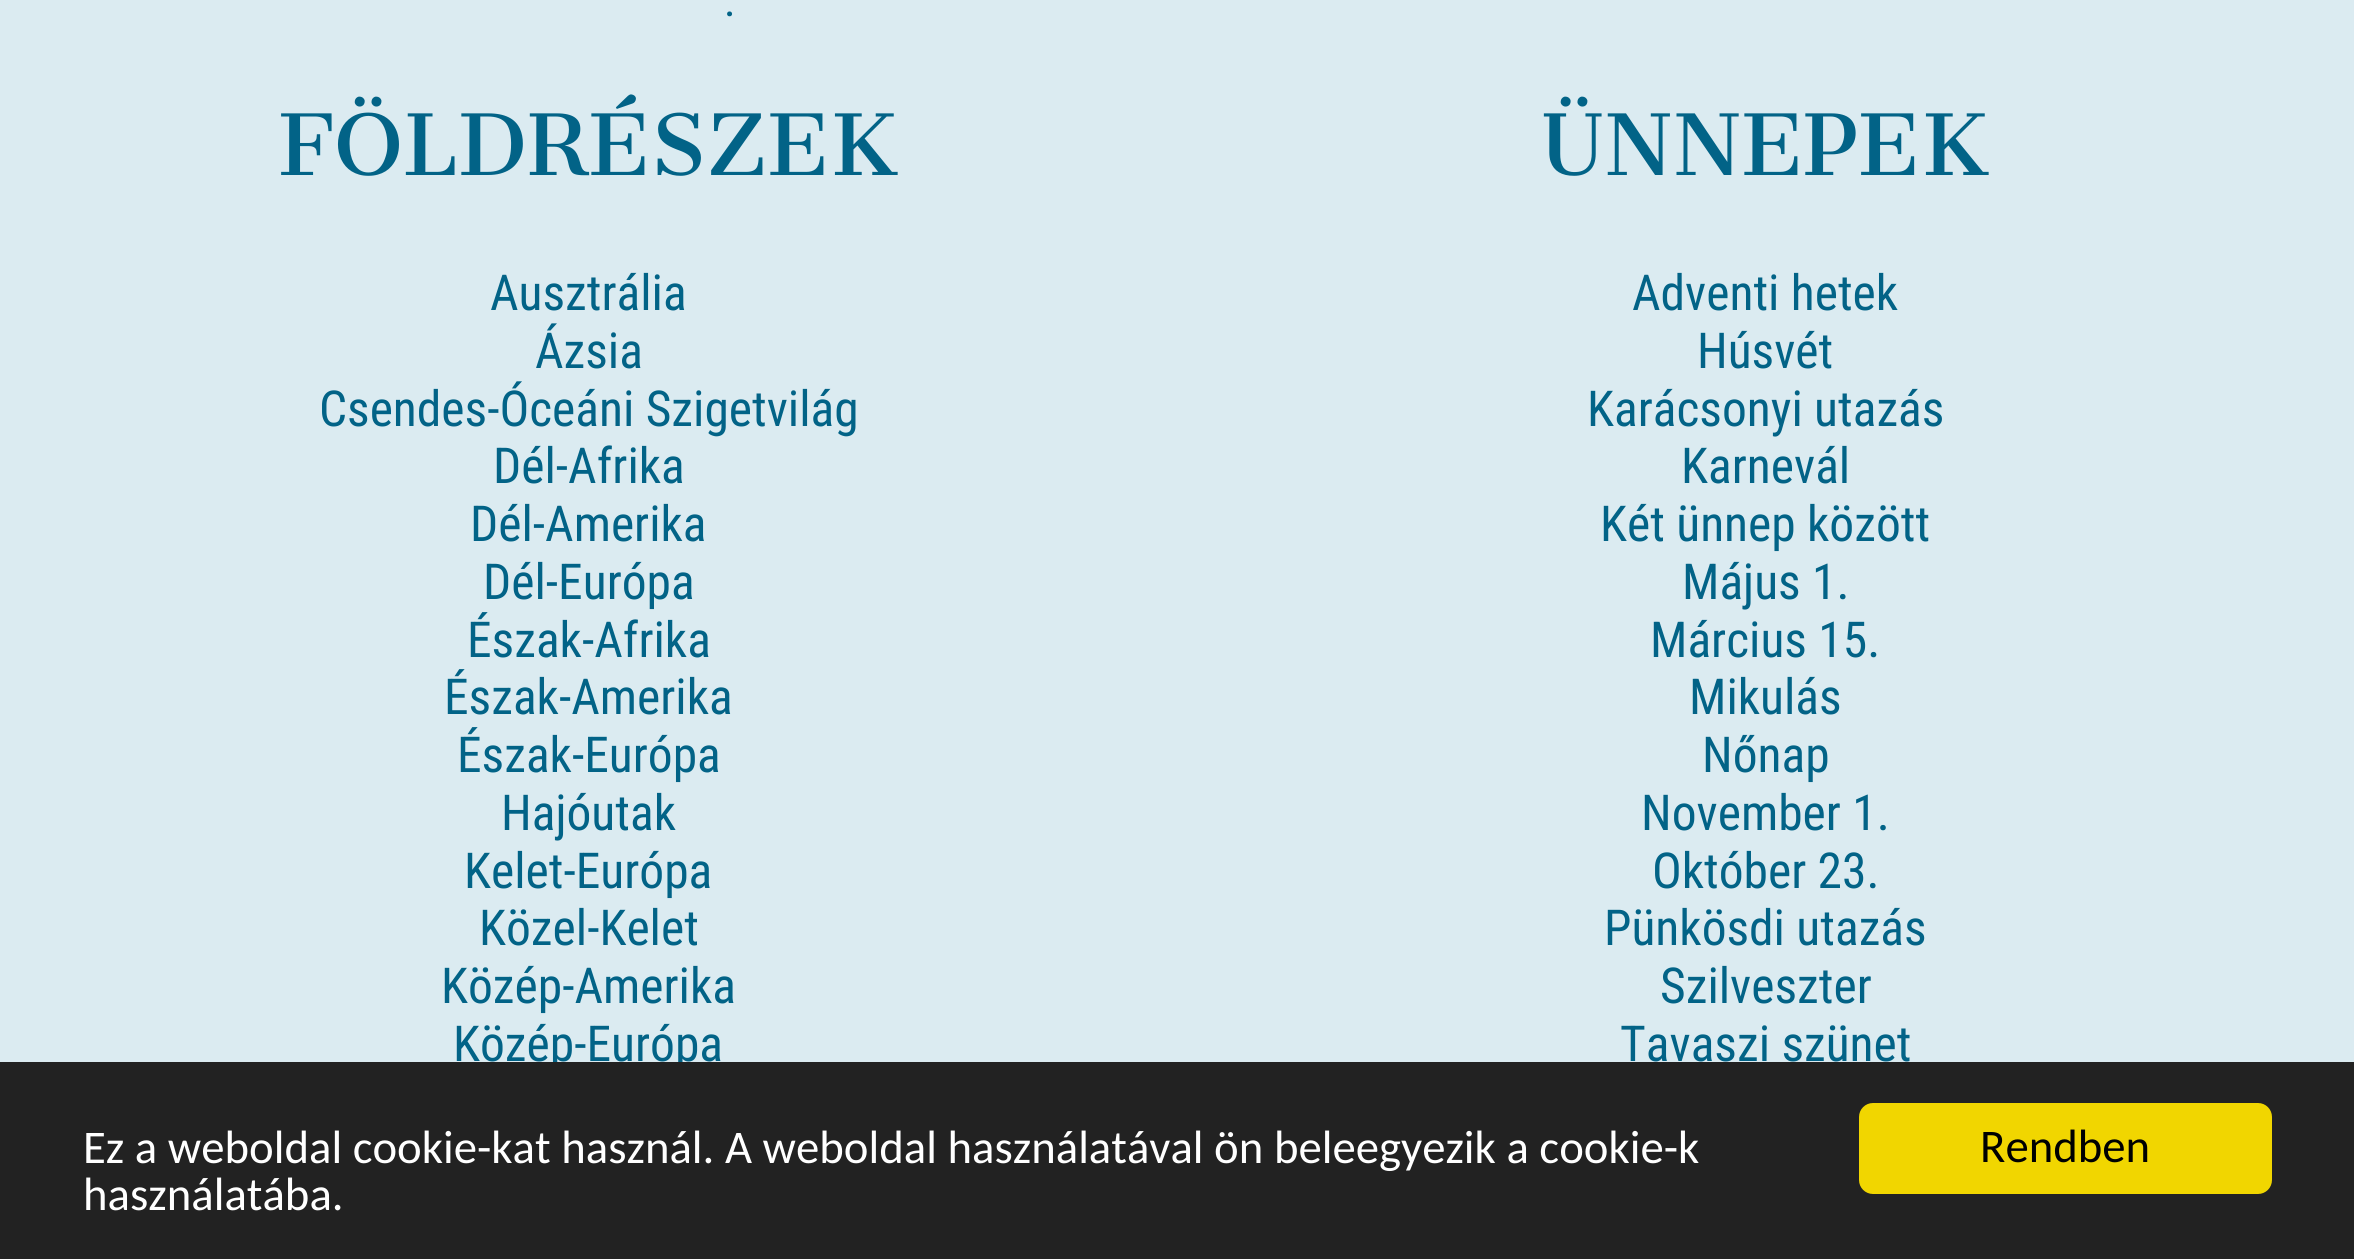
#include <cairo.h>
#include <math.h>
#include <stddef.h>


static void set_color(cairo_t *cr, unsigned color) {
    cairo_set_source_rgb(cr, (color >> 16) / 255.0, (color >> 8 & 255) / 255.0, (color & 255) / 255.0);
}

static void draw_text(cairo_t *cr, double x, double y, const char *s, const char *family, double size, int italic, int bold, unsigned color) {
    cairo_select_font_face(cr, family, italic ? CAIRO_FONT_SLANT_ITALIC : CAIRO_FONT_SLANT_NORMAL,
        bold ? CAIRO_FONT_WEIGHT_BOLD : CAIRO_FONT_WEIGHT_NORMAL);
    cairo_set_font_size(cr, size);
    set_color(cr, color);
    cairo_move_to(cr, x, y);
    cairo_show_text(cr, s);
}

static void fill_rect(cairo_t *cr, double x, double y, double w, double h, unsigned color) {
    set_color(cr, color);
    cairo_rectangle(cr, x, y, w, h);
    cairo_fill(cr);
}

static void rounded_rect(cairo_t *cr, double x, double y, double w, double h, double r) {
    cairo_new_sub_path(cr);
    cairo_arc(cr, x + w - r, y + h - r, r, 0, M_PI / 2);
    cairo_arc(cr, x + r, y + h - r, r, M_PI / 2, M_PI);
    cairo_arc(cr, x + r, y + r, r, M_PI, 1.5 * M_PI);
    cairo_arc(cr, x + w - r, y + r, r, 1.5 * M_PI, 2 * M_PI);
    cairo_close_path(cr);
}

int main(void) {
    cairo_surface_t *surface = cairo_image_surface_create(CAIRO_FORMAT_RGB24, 2354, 1259);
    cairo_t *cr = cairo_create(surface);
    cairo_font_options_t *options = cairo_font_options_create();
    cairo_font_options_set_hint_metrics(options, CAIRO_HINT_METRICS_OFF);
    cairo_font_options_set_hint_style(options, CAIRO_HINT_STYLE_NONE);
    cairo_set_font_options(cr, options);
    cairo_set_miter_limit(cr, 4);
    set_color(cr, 0xDBEBF1);
    cairo_paint(cr);
    draw_text(cr, 724, 16, ".", "Roboto Condensed", 44, 0, 0, 0x026387);
    draw_text(cr, 279, 175, "FÖLDRÉSZEK", "Cantata One", 82.5, 0, 0, 0x026387);
    draw_text(cr, 490, 310, "Ausztrália", "Roboto Condensed", 49.5, 0, 0, 0x026387);
    draw_text(cr, 535, 368, "Ázsia", "Roboto Condensed", 49.5, 0, 0, 0x026387);
    draw_text(cr, 319, 426, "Csendes-Óceáni Szigetvilág", "Roboto Condensed", 49.5, 0, 0, 0x026387);
    draw_text(cr, 493, 483, "Dél-Afrika", "Roboto Condensed", 49.5, 0, 0, 0x026387);
    draw_text(cr, 470, 541, "Dél-Amerika", "Roboto Condensed", 49.5, 0, 0, 0x026387);
    draw_text(cr, 483, 599, "Dél-Európa", "Roboto Condensed", 49.5, 0, 0, 0x026387);
    draw_text(cr, 467, 657, "Észak-Afrika", "Roboto Condensed", 49.5, 0, 0, 0x026387);
    draw_text(cr, 444, 714, "Észak-Amerika", "Roboto Condensed", 49.5, 0, 0, 0x026387);
    draw_text(cr, 457, 772, "Észak-Európa", "Roboto Condensed", 49.5, 0, 0, 0x026387);
    draw_text(cr, 501, 830, "Hajóutak", "Roboto Condensed", 49.5, 0, 0, 0x026387);
    draw_text(cr, 464, 888, "Kelet-Európa", "Roboto Condensed", 49.5, 0, 0, 0x026387);
    draw_text(cr, 479, 945, "Közel-Kelet", "Roboto Condensed", 49.5, 0, 0, 0x026387);
    draw_text(cr, 441, 1003, "Közép-Amerika", "Roboto Condensed", 49.5, 0, 0, 0x026387);
    draw_text(cr, 453, 1061, "Közép-Európa", "Roboto Condensed", 49.5, 0, 0, 0x026387);
    draw_text(cr, 1542, 175, "ÜNNEPEK", "Cantata One", 82.5, 0, 0, 0x026387);
    draw_text(cr, 1632, 310, "Adventi hetek", "Roboto Condensed", 49.5, 0, 0, 0x026387);
    draw_text(cr, 1697, 368, "Húsvét", "Roboto Condensed", 49.5, 0, 0, 0x026387);
    draw_text(cr, 1587, 426, "Karácsonyi utazás", "Roboto Condensed", 49.5, 0, 0, 0x026387);
    draw_text(cr, 1681, 483, "Karnevál", "Roboto Condensed", 49.5, 0, 0, 0x026387);
    draw_text(cr, 1600, 541, "Két ünnep között", "Roboto Condensed", 49.5, 0, 0, 0x026387);
    draw_text(cr, 1682, 599, "Május 1.", "Roboto Condensed", 49.5, 0, 0, 0x026387);
    draw_text(cr, 1650, 657, "Március 15.", "Roboto Condensed", 49.5, 0, 0, 0x026387);
    draw_text(cr, 1689, 714, "Mikulás", "Roboto Condensed", 49.5, 0, 0, 0x026387);
    draw_text(cr, 1702, 772, "Nőnap", "Roboto Condensed", 49.5, 0, 0, 0x026387);
    draw_text(cr, 1641, 830, "November 1.", "Roboto Condensed", 49.5, 0, 0, 0x026387);
    draw_text(cr, 1652, 888, "Október 23.", "Roboto Condensed", 49.5, 0, 0, 0x026387);
    draw_text(cr, 1604, 945, "Pünkösdi utazás", "Roboto Condensed", 49.5, 0, 0, 0x026387);
    draw_text(cr, 1660, 1003, "Szilveszter", "Roboto Condensed", 49.5, 0, 0, 0x026387);
    draw_text(cr, 1620, 1061, "Tavaszi szünet", "Roboto Condensed", 49.5, 0, 0, 0x026387);
    fill_rect(cr, 0, 1062, 2354, 197, 0x222222);
    draw_text(cr, 83, 1163, "Ez a weboldal cookie-kat használ. A weboldal használatával ön beleegyezik a cookie-k", "Carlito", 46.75, 0, 0, 0xFFFFFF);
    draw_text(cr, 83, 1210, "használatába.", "Carlito", 46.75, 0, 0, 0xFFFFFF);
    set_color(cr, 0xF1D600);
    rounded_rect(cr, 1859, 1103, 413, 91, 14);
    cairo_fill(cr);
    draw_text(cr, 1980, 1162, "Rendben", "Carlito", 46.75, 0, 0, 0x000000);
    cairo_surface_write_to_png(surface, "output.png");
    cairo_font_options_destroy(options);
    cairo_destroy(cr);
    cairo_surface_destroy(surface);
    return 0;
}
